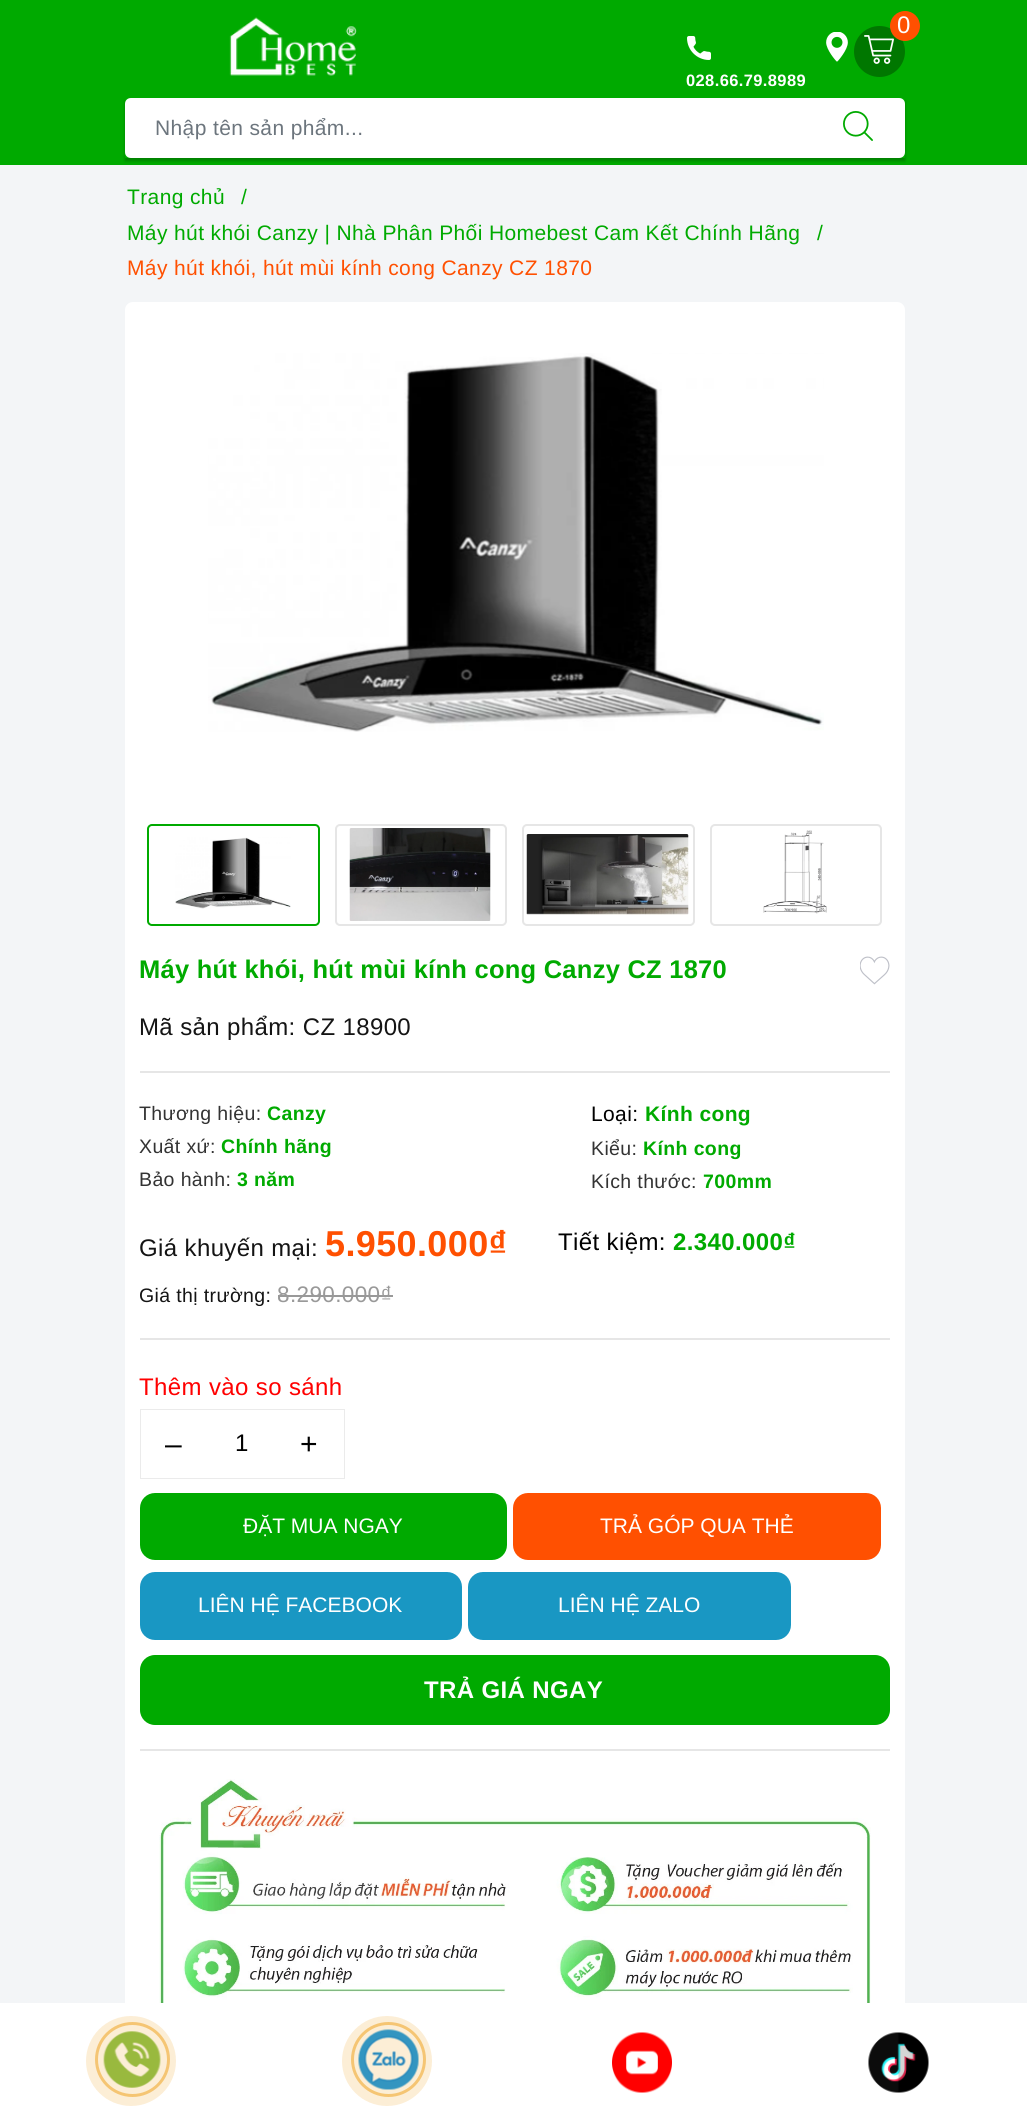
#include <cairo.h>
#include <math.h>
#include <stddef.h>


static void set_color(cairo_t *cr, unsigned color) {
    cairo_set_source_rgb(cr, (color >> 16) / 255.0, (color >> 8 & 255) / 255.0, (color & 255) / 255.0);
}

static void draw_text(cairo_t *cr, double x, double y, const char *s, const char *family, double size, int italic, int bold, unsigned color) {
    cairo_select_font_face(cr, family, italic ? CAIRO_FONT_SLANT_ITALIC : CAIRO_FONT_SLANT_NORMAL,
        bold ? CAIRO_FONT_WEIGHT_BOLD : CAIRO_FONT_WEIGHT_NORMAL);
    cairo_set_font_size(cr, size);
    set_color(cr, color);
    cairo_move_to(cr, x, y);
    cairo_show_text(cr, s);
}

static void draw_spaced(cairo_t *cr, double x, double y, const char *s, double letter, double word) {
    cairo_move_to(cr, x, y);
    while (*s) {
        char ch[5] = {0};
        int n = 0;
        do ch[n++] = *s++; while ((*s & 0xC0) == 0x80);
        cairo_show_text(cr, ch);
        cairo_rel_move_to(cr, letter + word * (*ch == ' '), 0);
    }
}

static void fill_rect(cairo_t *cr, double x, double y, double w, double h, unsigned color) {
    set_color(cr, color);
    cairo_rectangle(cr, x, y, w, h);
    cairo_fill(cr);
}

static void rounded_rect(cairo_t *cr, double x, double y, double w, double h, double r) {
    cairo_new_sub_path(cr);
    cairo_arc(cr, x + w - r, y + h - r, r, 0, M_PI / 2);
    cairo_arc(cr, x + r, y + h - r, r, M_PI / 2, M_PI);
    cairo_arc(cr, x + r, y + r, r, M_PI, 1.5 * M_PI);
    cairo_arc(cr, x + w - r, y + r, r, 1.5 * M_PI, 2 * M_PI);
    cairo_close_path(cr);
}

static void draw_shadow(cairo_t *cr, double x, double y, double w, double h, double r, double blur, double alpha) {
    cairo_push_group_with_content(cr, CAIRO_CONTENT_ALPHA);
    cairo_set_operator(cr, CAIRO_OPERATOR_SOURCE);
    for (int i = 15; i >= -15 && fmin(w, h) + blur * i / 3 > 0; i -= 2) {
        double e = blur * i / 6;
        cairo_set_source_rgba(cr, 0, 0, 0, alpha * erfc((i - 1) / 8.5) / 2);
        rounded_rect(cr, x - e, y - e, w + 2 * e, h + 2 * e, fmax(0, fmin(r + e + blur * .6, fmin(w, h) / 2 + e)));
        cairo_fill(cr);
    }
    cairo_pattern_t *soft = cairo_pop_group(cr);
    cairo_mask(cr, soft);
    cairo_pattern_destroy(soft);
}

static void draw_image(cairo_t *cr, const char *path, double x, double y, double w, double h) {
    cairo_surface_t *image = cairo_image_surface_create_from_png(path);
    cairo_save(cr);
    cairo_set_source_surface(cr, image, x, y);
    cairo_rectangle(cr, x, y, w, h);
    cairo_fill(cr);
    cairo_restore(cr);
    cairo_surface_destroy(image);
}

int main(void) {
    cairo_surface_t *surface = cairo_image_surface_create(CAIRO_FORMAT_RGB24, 1027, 2122);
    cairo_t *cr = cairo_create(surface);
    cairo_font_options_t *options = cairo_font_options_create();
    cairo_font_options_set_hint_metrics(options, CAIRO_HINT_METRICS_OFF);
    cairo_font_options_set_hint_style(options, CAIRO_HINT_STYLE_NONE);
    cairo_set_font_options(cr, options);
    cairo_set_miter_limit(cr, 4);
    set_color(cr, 0xF3F5F7);
    cairo_paint(cr);
    fill_rect(cr, 0, 0, 1027, 165, 0x00AA00);
    draw_image(cr, "assets/img1.png", 229, 17, 128, 59);
    draw_image(cr, "assets/img2.png", 826, 32, 22, 30);
    set_color(cr, 0x007700);
    cairo_arc(cr, 879.5, 51.5, 25.5, 0, 2 * M_PI);
    cairo_fill(cr);
    draw_image(cr, "assets/img3.png", 864, 35, 30, 29);
    set_color(cr, 0xFF5001);
    cairo_arc(cr, 905, 26, 15, 0, 2 * M_PI);
    cairo_fill(cr);
    cairo_select_font_face(cr, "Liberation Sans", CAIRO_FONT_SLANT_NORMAL, CAIRO_FONT_WEIGHT_NORMAL);
    cairo_set_font_size(cr, 24);
    set_color(cr, 0xFFFFFF);
    draw_spaced(cr, 897, 33, "0", 0.38, 0);
    draw_image(cr, "assets/img4.png", 687, 36, 24, 24);
    cairo_select_font_face(cr, "Liberation Sans", CAIRO_FONT_SLANT_NORMAL, CAIRO_FONT_WEIGHT_BOLD);
    cairo_set_font_size(cr, 16.5);
    draw_spaced(cr, 686, 86, "028.66.79.8989", 0.38, 0);
    cairo_save(cr);
    cairo_set_fill_rule(cr, CAIRO_FILL_RULE_EVEN_ODD);
    cairo_new_path(cr);
    cairo_move_to(cr, 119, 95);
    cairo_line_to(cr, 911, 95);
    cairo_line_to(cr, 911, 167);
    cairo_line_to(cr, 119, 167);
    cairo_close_path(cr);
    cairo_move_to(cr, 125, 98);
    cairo_line_to(cr, 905, 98);
    cairo_line_to(cr, 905, 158);
    cairo_line_to(cr, 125, 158);
    cairo_close_path(cr);
    cairo_clip(cr);
    set_color(cr, 0x000000);
    draw_shadow(cr, 125, 101, 780, 60, 0, 1.5, 0.24);
    cairo_restore(cr);
    cairo_new_path(cr);
    cairo_move_to(cr, 131, 99);
    cairo_line_to(cr, 812, 99);
    cairo_line_to(cr, 812, 157);
    cairo_line_to(cr, 131, 157);
    cairo_curve_to(cr, 128, 157, 126, 155, 126, 152);
    cairo_line_to(cr, 126, 104);
    cairo_curve_to(cr, 126, 101, 128, 99, 131, 99);
    cairo_close_path(cr);
    cairo_fill_preserve(cr);
    cairo_stroke(cr);
    cairo_select_font_face(cr, "Liberation Sans", CAIRO_FONT_SLANT_NORMAL, CAIRO_FONT_WEIGHT_NORMAL);
    cairo_set_font_size(cr, 21);
    set_color(cr, 0x6C757D);
    draw_spaced(cr, 155, 135, "Nhập tên sản phẩm...", 0.38, 0);
    set_color(cr, 0xFFFFFF);
    cairo_new_path(cr);
    cairo_move_to(cr, 813, 99);
    cairo_line_to(cr, 899, 99);
    cairo_curve_to(cr, 902, 99, 904, 101, 904, 104);
    cairo_line_to(cr, 904, 152);
    cairo_curve_to(cr, 904, 155, 902, 157, 899, 157);
    cairo_line_to(cr, 813, 157);
    cairo_close_path(cr);
    cairo_fill_preserve(cr);
    cairo_stroke(cr);
    draw_image(cr, "assets/img5.png", 843, 111, 30, 30);
    set_color(cr, 0x00AA00);
    draw_spaced(cr, 127, 204, "Trang chủ", 0.38, 0);
    draw_spaced(cr, 241, 204, "/", 0.38, 0);
    draw_spaced(cr, 127, 240, "Máy hút khói Canzy | Nhà Phân Phối Homebest Cam Kết Chính Hãng", 0.38, 0);
    draw_spaced(cr, 817, 240, "/", 0.38, 0);
    set_color(cr, 0xFF5001);
    draw_spaced(cr, 127, 275, "Máy hút khói, hút mùi kính cong Canzy CZ 1870", 0.38, 0);
    set_color(cr, 0xFFFFFF);
    rounded_rect(cr, 125, 302, 780, 1776, 8);
    cairo_fill(cr);
    draw_image(cr, "assets/img6.png", 208, 353, 616, 379);
    rounded_rect(cr, 148, 825, 171, 100, 4);
    set_color(cr, 0x00AA00);
    cairo_stroke(cr);
    draw_image(cr, "assets/img7.png", 175, 837, 116, 72);
    rounded_rect(cr, 336, 825, 170, 100, 4);
    set_color(cr, 0xE6E6E6);
    cairo_stroke(cr);
    draw_image(cr, "assets/img8.png", 349, 828, 142, 93);
    rounded_rect(cr, 523, 825, 171, 100, 4);
    cairo_stroke(cr);
    draw_image(cr, "assets/img9.png", 526, 834, 163, 81);
    rounded_rect(cr, 711, 825, 170, 100, 4);
    cairo_stroke(cr);
    draw_image(cr, "assets/img10.png", 763, 830, 64, 84);
    cairo_select_font_face(cr, "Liberation Sans", CAIRO_FONT_SLANT_NORMAL, CAIRO_FONT_WEIGHT_BOLD);
    cairo_set_font_size(cr, 25.5);
    set_color(cr, 0x00AA00);
    draw_spaced(cr, 139, 978, "Máy hút khói, hút mùi kính cong Canzy CZ 1870", 0.25, 0);
    draw_image(cr, "assets/img11.png", 860, 956, 30, 29);
    cairo_select_font_face(cr, "Liberation Sans", CAIRO_FONT_SLANT_NORMAL, CAIRO_FONT_WEIGHT_NORMAL);
    cairo_set_font_size(cr, 24);
    set_color(cr, 0x141414);
    draw_spaced(cr, 139, 1035, "Mã sản phẩm: CZ 18900", 0.38, 0);
    fill_rect(cr, 140, 1071, 750, 2, 0xE6E6E6);
    cairo_set_font_size(cr, 19.5);
    set_color(cr, 0x333333);
    draw_spaced(cr, 139, 1120, "Thương hiệu:", 0.38, 0);
    cairo_select_font_face(cr, "Liberation Sans", CAIRO_FONT_SLANT_NORMAL, CAIRO_FONT_WEIGHT_BOLD);
    set_color(cr, 0x00AA00);
    draw_spaced(cr, 267, 1120, "Canzy", 0.38, 0);
    cairo_select_font_face(cr, "Liberation Sans", CAIRO_FONT_SLANT_NORMAL, CAIRO_FONT_WEIGHT_NORMAL);
    set_color(cr, 0x333333);
    draw_spaced(cr, 139, 1153, "Xuất xứ:", 0.38, 0);
    cairo_select_font_face(cr, "Liberation Sans", CAIRO_FONT_SLANT_NORMAL, CAIRO_FONT_WEIGHT_BOLD);
    set_color(cr, 0x00AA00);
    draw_spaced(cr, 221, 1153, "Chính hãng", 0.38, 0);
    cairo_select_font_face(cr, "Liberation Sans", CAIRO_FONT_SLANT_NORMAL, CAIRO_FONT_WEIGHT_NORMAL);
    set_color(cr, 0x333333);
    draw_spaced(cr, 139, 1186, "Bảo hành:", 0.38, 0);
    cairo_select_font_face(cr, "Liberation Sans", CAIRO_FONT_SLANT_NORMAL, CAIRO_FONT_WEIGHT_BOLD);
    set_color(cr, 0x00AA00);
    draw_spaced(cr, 237, 1186, "3 năm", 0.38, 0);
    cairo_select_font_face(cr, "Liberation Sans", CAIRO_FONT_SLANT_NORMAL, CAIRO_FONT_WEIGHT_NORMAL);
    cairo_set_font_size(cr, 21);
    set_color(cr, 0x000000);
    draw_spaced(cr, 591, 1121, "Loại:", 0.38, 0);
    cairo_select_font_face(cr, "Liberation Sans", CAIRO_FONT_SLANT_NORMAL, CAIRO_FONT_WEIGHT_BOLD);
    set_color(cr, 0x00AA00);
    draw_spaced(cr, 645, 1121, "Kính cong", 0.38, 0);
    cairo_select_font_face(cr, "Liberation Sans", CAIRO_FONT_SLANT_NORMAL, CAIRO_FONT_WEIGHT_NORMAL);
    cairo_set_font_size(cr, 19.5);
    set_color(cr, 0x333333);
    draw_spaced(cr, 591, 1155, "Kiểu:", 0.38, 0);
    cairo_select_font_face(cr, "Liberation Sans", CAIRO_FONT_SLANT_NORMAL, CAIRO_FONT_WEIGHT_BOLD);
    set_color(cr, 0x00AA00);
    draw_spaced(cr, 643, 1155, "Kính cong", 0.38, 0);
    cairo_select_font_face(cr, "Liberation Sans", CAIRO_FONT_SLANT_NORMAL, CAIRO_FONT_WEIGHT_NORMAL);
    set_color(cr, 0x333333);
    draw_spaced(cr, 591, 1188, "Kích thước:", 0.38, 0);
    cairo_select_font_face(cr, "Liberation Sans", CAIRO_FONT_SLANT_NORMAL, CAIRO_FONT_WEIGHT_BOLD);
    set_color(cr, 0x00AA00);
    draw_spaced(cr, 703, 1188, "700mm", 0.38, 0);
    cairo_select_font_face(cr, "Liberation Sans", CAIRO_FONT_SLANT_NORMAL, CAIRO_FONT_WEIGHT_NORMAL);
    cairo_set_font_size(cr, 24);
    set_color(cr, 0x141414);
    draw_spaced(cr, 139, 1256, "Giá khuyến mại:", 0.38, 0);
    cairo_select_font_face(cr, "Liberation Sans", CAIRO_FONT_SLANT_NORMAL, CAIRO_FONT_WEIGHT_BOLD);
    cairo_set_font_size(cr, 36);
    set_color(cr, 0xFF5001);
    draw_spaced(cr, 325, 1256, "5.950.000₫", 0.38, 0);
    cairo_select_font_face(cr, "Liberation Sans", CAIRO_FONT_SLANT_NORMAL, CAIRO_FONT_WEIGHT_NORMAL);
    cairo_set_font_size(cr, 19.5);
    set_color(cr, 0x141414);
    draw_spaced(cr, 139, 1302, "Giá thị trường:", 0.38, 0);
    cairo_set_font_size(cr, 22.5);
    set_color(cr, 0x999999);
    draw_spaced(cr, 277, 1302, "8.290.000₫", 0.38, 0);
    fill_rect(cr, 278, 1295, 115, 2, 0x999999);
    cairo_set_font_size(cr, 24);
    set_color(cr, 0x000000);
    draw_spaced(cr, 558, 1250, "Tiết kiệm:", 0.38, 0);
    cairo_select_font_face(cr, "Liberation Sans", CAIRO_FONT_SLANT_NORMAL, CAIRO_FONT_WEIGHT_BOLD);
    set_color(cr, 0x00AA00);
    draw_spaced(cr, 673, 1250, "2.340.000₫", 0.38, 0);
    fill_rect(cr, 140, 1338, 750, 2, 0xE6E6E6);
    cairo_select_font_face(cr, "Liberation Sans", CAIRO_FONT_SLANT_NORMAL, CAIRO_FONT_WEIGHT_NORMAL);
    set_color(cr, 0xFF0000);
    draw_spaced(cr, 139, 1395, "Thêm vào so sánh", 0.38, 0);
    cairo_rectangle(cr, 141, 1410, 203, 68);
    set_color(cr, 0xEBEBEB);
    cairo_stroke(cr);
    fill_rect(cr, 141, 1410, 203, 68, 0xFFFFFF);
    cairo_set_font_size(cr, 30);
    set_color(cr, 0x000000);
    draw_spaced(cr, 165, 1454, "–", 0.38, 0);
    cairo_set_font_size(cr, 24);
    draw_spaced(cr, 235, 1451, "1", 0.38, 0);
    cairo_set_font_size(cr, 30);
    draw_spaced(cr, 300, 1454, "+", 0.38, 0);
    set_color(cr, 0x00AA00);
    rounded_rect(cr, 141, 1494, 365, 65, 14);
    cairo_fill_preserve(cr);
    cairo_stroke(cr);
    draw_text(cr, 243, 1533, "ĐẶT MUA NGAY", "Liberation Sans", 21, 0, 0, 0xFFFFFF);
    set_color(cr, 0xFF5001);
    rounded_rect(cr, 514, 1494, 366, 65, 14);
    cairo_fill_preserve(cr);
    cairo_stroke(cr);
    draw_text(cr, 600, 1533, "TRẢ GÓP QUA THẺ", "Liberation Sans", 21, 0, 0, 0xFFFFFF);
    set_color(cr, 0x1997C3);
    rounded_rect(cr, 141, 1573, 320, 66, 14);
    cairo_fill_preserve(cr);
    cairo_stroke(cr);
    draw_text(cr, 198, 1612, "LIÊN HỆ FACEBOOK", "Liberation Sans", 21, 0, 0, 0xFFFFFF);
    set_color(cr, 0x1997C3);
    rounded_rect(cr, 469, 1573, 321, 66, 14);
    cairo_fill_preserve(cr);
    cairo_stroke(cr);
    draw_text(cr, 558, 1612, "LIÊN HỆ ZALO", "Liberation Sans", 21, 0, 0, 0xFFFFFF);
    set_color(cr, 0x00AA00);
    rounded_rect(cr, 140, 1655, 750, 70, 15);
    cairo_fill(cr);
    cairo_select_font_face(cr, "Liberation Sans", CAIRO_FONT_SLANT_NORMAL, CAIRO_FONT_WEIGHT_BOLD);
    cairo_set_font_size(cr, 24);
    set_color(cr, 0xFFFFFF);
    draw_spaced(cr, 424, 1698, "TRẢ GIÁ NGAY", 0.38, 0);
    fill_rect(cr, 140, 1749, 750, 2, 0xE6E6E6);
    draw_image(cr, "assets/img12.png", 159, 1779, 712, 224);
    fill_rect(cr, 0, 2003, 1027, 119, 0xFFFFFF);
    draw_image(cr, "assets/img13.png", 103, 2031, 58, 57);
    cairo_arc(cr, 132.5, 2059.5, 36, 0, 2 * M_PI);
    set_color(cr, 0xF6CE88);
    cairo_set_line_width(cr, 3);
    cairo_stroke(cr);
    cairo_set_source_rgba(cr, 0.929, 0.612, 0.063, 0.17);
    cairo_arc(cr, 131, 2061, 45, 0, 2 * M_PI);
    cairo_fill(cr);
    draw_image(cr, "assets/img14.png", 358, 2029, 61, 61);
    cairo_arc(cr, 388.5, 2059.5, 36, 0, 2 * M_PI);
    set_color(cr, 0xF6CE88);
    cairo_stroke(cr);
    cairo_set_source_rgba(cr, 0.929, 0.612, 0.063, 0.17);
    cairo_arc(cr, 387, 2061, 45, 0, 2 * M_PI);
    cairo_fill(cr);
    draw_image(cr, "assets/img15.png", 612, 2032, 60, 61);
    draw_image(cr, "assets/img16.png", 868, 2032, 61, 61);
    cairo_surface_write_to_png(surface, "output.png");
    cairo_font_options_destroy(options);
    cairo_destroy(cr);
    cairo_surface_destroy(surface);
    return 0;
}
